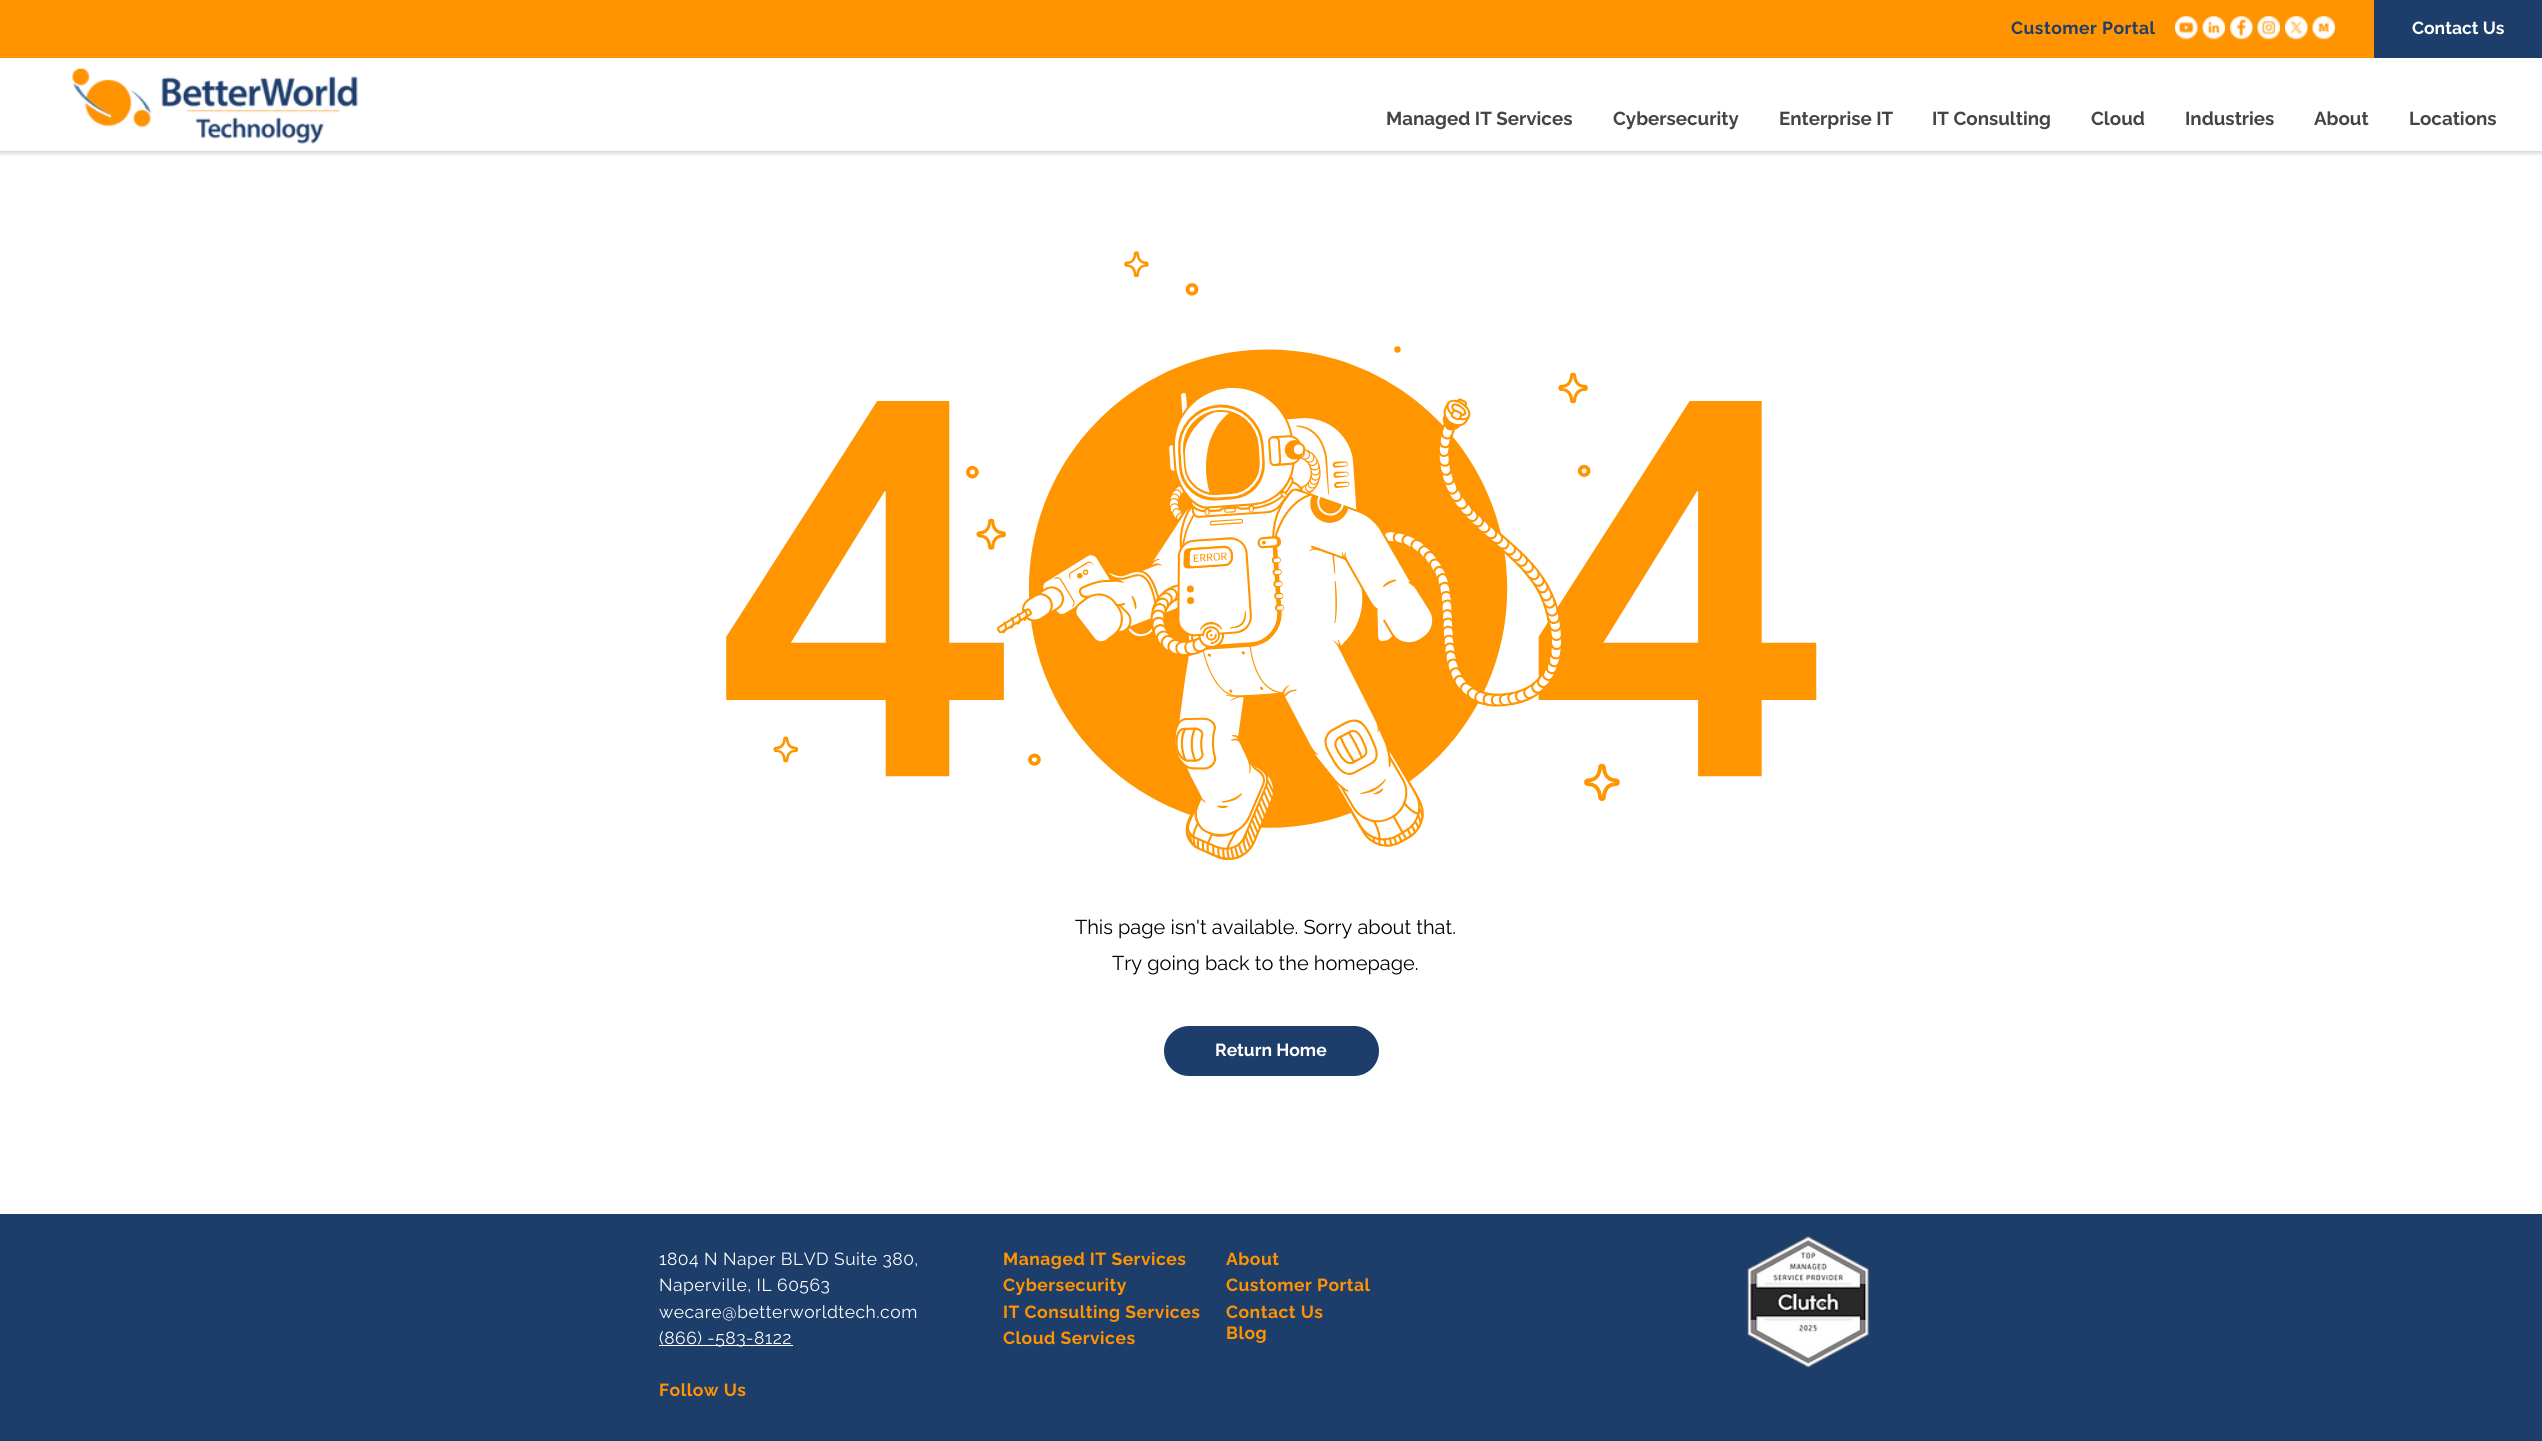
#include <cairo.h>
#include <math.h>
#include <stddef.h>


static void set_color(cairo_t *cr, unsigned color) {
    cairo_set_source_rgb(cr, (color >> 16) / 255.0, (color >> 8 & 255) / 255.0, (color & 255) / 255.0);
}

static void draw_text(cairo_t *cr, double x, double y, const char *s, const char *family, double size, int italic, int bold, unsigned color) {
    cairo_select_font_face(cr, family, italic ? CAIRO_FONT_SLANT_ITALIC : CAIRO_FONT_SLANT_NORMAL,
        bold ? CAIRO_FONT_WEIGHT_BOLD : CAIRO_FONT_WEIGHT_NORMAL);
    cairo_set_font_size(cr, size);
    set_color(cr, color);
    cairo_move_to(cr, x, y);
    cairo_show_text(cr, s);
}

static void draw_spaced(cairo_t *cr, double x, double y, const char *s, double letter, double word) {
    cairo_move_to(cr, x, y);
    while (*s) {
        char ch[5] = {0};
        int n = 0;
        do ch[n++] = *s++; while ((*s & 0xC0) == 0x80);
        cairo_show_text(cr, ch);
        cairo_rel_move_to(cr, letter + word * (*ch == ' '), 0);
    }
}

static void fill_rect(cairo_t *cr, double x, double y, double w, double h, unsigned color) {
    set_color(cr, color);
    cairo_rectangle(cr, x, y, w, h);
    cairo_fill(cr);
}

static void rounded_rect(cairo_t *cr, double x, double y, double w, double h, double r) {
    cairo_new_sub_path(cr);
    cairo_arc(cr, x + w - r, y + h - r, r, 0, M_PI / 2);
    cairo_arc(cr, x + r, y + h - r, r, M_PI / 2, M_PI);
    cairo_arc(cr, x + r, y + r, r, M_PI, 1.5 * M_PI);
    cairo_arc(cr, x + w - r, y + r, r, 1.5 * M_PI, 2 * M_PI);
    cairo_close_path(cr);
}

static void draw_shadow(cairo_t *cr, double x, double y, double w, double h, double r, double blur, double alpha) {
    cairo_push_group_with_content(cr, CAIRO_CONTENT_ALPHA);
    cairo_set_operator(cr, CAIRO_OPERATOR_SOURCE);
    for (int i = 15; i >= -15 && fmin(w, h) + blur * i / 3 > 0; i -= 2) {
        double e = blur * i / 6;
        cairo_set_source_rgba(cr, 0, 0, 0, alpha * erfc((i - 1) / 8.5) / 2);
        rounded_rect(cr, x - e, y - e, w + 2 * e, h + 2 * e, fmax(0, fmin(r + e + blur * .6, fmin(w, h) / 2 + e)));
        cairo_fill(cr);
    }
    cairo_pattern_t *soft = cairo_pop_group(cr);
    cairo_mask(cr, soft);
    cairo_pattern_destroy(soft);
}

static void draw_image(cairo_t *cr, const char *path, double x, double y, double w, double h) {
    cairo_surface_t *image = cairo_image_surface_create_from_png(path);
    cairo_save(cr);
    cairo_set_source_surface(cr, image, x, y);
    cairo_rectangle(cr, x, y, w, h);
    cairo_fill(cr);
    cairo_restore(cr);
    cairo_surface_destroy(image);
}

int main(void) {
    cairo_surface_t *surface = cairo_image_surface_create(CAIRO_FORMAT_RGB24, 2542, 1441);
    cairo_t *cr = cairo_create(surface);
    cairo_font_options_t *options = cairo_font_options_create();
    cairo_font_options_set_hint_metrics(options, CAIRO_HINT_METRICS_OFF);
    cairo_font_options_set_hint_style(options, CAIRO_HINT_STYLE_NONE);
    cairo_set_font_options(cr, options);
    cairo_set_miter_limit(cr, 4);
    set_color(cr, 0xFFFFFF);
    cairo_paint(cr);
    cairo_save(cr);
    cairo_rectangle(cr, 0, 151, 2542, 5);
    cairo_clip(cr);
    set_color(cr, 0x000000);
    draw_shadow(cr, 0, 1, 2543, 152, 0, 2.5, 0.2);
    cairo_restore(cr);
    fill_rect(cr, 0, 0, 2374, 58, 0xFF9300);
    draw_image(cr, "assets/img1.png", 72, 68, 286, 76);
    cairo_select_font_face(cr, "Raleway", CAIRO_FONT_SLANT_NORMAL, CAIRO_FONT_WEIGHT_BOLD);
    cairo_set_font_size(cr, 17.5);
    set_color(cr, 0x1D3D6B);
    draw_spaced(cr, 2011, 34, "Customer Portal", 0.5, 0);
    draw_image(cr, "assets/img2.png", 2175, 16, 23, 24);
    draw_image(cr, "assets/img3.png", 2202, 16, 23, 24);
    draw_image(cr, "assets/img4.png", 2230, 16, 23, 24);
    draw_image(cr, "assets/img5.png", 2257, 16, 23, 24);
    draw_image(cr, "assets/img6.png", 2285, 16, 23, 24);
    draw_image(cr, "assets/img7.png", 2312, 16, 23, 24);
    fill_rect(cr, 2374, 0, 168, 58, 0x1D3D6B);
    draw_text(cr, 2412, 34, "Contact Us", "Raleway", 17.5, 0, 1, 0xFFFFFF);
    draw_text(cr, 1386, 125, "Managed IT Services", "Raleway", 18.75, 0, 1, 0x454545);
    draw_text(cr, 1613, 125, "Cybersecurity", "Raleway", 18.75, 0, 1, 0x454545);
    draw_text(cr, 1779, 125, "Enterprise IT", "Raleway", 18.75, 0, 1, 0x454545);
    draw_text(cr, 1932, 125, "IT Consulting", "Raleway", 18.75, 0, 1, 0x454545);
    draw_text(cr, 2091, 125, "Cloud", "Raleway", 18.75, 0, 1, 0x454545);
    draw_text(cr, 2185, 125, "Industries", "Raleway", 18.75, 0, 1, 0x454545);
    draw_text(cr, 2314, 125, "About", "Raleway", 18.75, 0, 1, 0x454545);
    draw_text(cr, 2409, 125, "Locations", "Raleway", 18.75, 0, 1, 0x454545);
    draw_image(cr, "assets/img8.png", 726, 251, 1091, 609);
    draw_text(cr, 1075, 934, "This page isn't available. Sorry about that.", "Raleway", 20, 0, 0, 0x000000);
    draw_text(cr, 1112, 970, "Try going back to the homepage.", "Raleway", 20, 0, 0, 0x000000);
    set_color(cr, 0x1D3D6B);
    rounded_rect(cr, 1164, 1026, 215, 50, 25);
    cairo_fill(cr);
    draw_text(cr, 1215, 1056, "Return Home", "Raleway", 17.5, 0, 1, 0xFFFFFF);
    fill_rect(cr, 0, 1214, 2542, 227, 0x1D3D6B);
    cairo_select_font_face(cr, "Raleway", CAIRO_FONT_SLANT_NORMAL, CAIRO_FONT_WEIGHT_NORMAL);
    set_color(cr, 0xFFFFFF);
    draw_spaced(cr, 659, 1265, "1804 N Naper BLVD Suite 380,", 0.5, 0);
    draw_spaced(cr, 659, 1291, "Naperville, IL 60563", 0.5, 0);
    draw_spaced(cr, 659, 1318, "wecare@betterworldtech.com", 0.5, 0);
    fill_rect(cr, 659, 1345, 134, 1, 0xFFFFFF);
    draw_spaced(cr, 659, 1344, "(866) -583-8122", 0.5, 0);
    cairo_select_font_face(cr, "Raleway", CAIRO_FONT_SLANT_NORMAL, CAIRO_FONT_WEIGHT_BOLD);
    set_color(cr, 0xFF9300);
    draw_spaced(cr, 659, 1396, "Follow Us", 0.5, 0);
    draw_spaced(cr, 1003, 1265, "Managed IT Services", 0.5, 0);
    draw_spaced(cr, 1003, 1291, "Cybersecurity", 0.5, 0);
    draw_spaced(cr, 1003, 1318, "IT Consulting Services", 0.5, 0);
    draw_spaced(cr, 1003, 1344, "Cloud Services", 0.5, 0);
    draw_spaced(cr, 1226, 1265, "About", 0.5, 0);
    draw_spaced(cr, 1226, 1291, "Customer Portal", 0.5, 0);
    draw_spaced(cr, 1226, 1318, "Contact Us", 0.5, 0);
    draw_image(cr, "assets/img9.png", 1747, 1236, 122, 132);
    draw_spaced(cr, 1226, 1339, "Blog", 0.5, 0);
    cairo_surface_write_to_png(surface, "output.png");
    cairo_font_options_destroy(options);
    cairo_destroy(cr);
    cairo_surface_destroy(surface);
    return 0;
}
